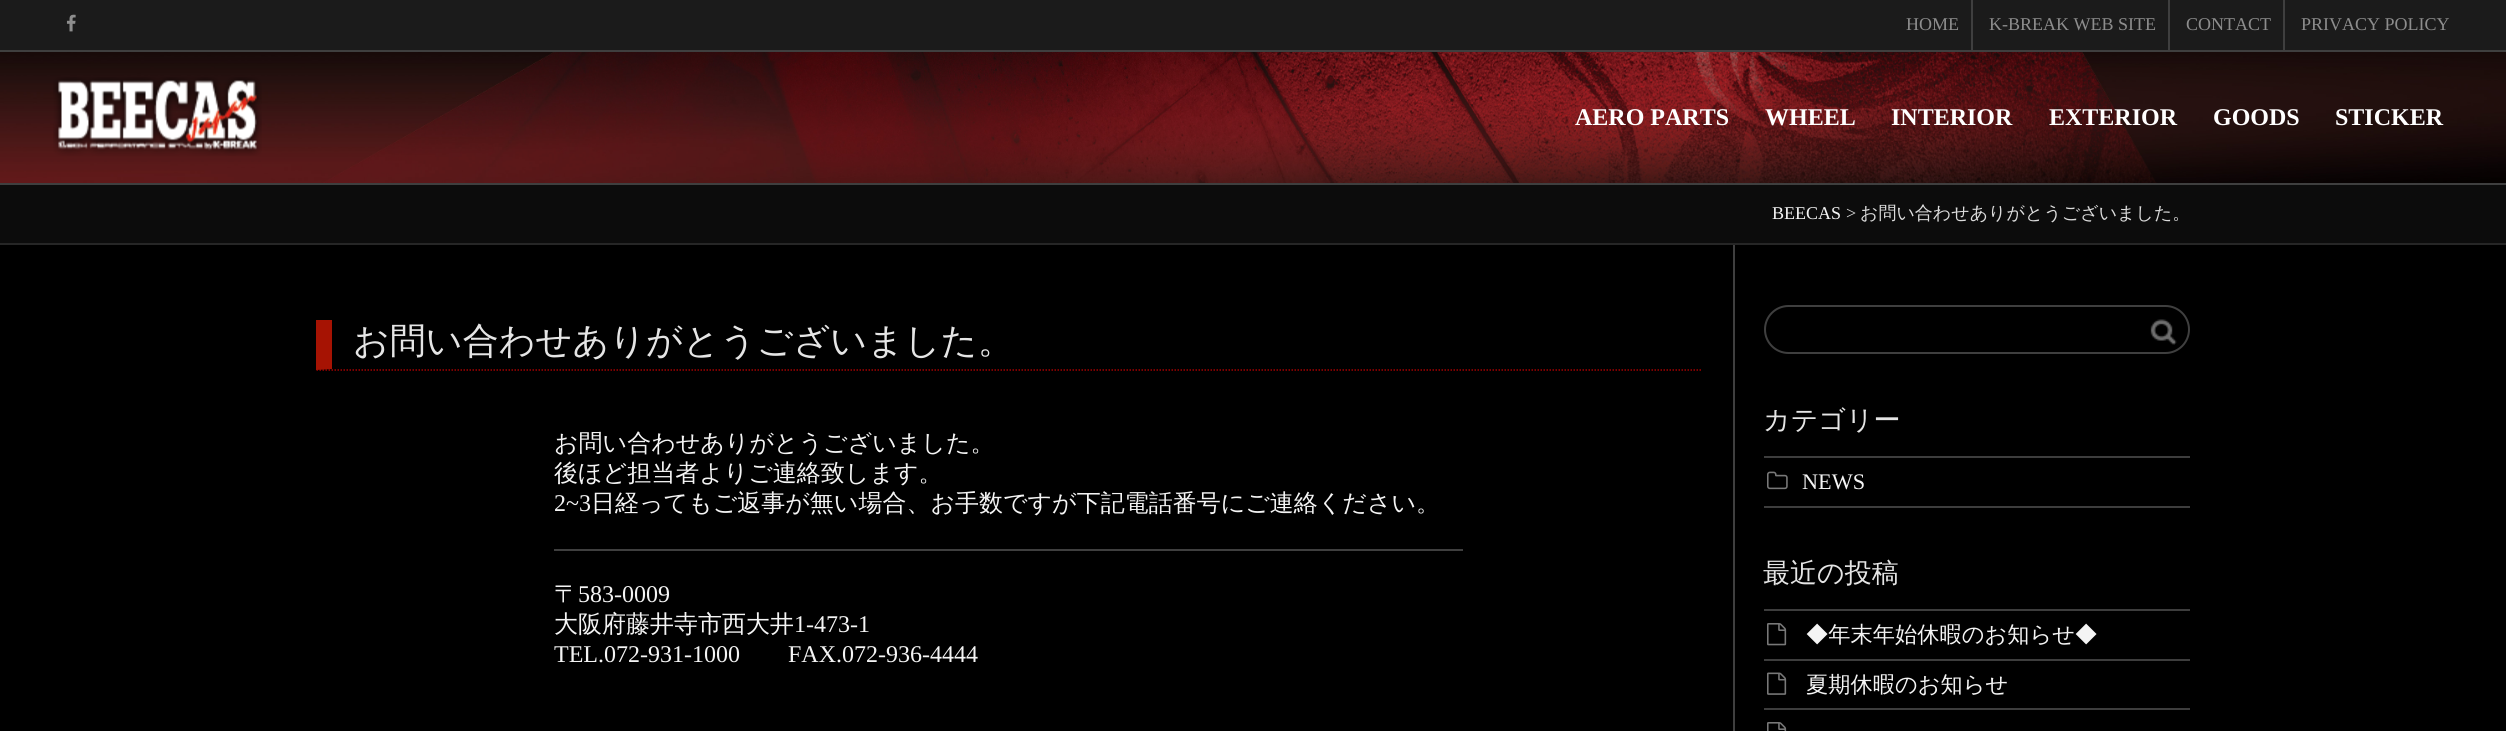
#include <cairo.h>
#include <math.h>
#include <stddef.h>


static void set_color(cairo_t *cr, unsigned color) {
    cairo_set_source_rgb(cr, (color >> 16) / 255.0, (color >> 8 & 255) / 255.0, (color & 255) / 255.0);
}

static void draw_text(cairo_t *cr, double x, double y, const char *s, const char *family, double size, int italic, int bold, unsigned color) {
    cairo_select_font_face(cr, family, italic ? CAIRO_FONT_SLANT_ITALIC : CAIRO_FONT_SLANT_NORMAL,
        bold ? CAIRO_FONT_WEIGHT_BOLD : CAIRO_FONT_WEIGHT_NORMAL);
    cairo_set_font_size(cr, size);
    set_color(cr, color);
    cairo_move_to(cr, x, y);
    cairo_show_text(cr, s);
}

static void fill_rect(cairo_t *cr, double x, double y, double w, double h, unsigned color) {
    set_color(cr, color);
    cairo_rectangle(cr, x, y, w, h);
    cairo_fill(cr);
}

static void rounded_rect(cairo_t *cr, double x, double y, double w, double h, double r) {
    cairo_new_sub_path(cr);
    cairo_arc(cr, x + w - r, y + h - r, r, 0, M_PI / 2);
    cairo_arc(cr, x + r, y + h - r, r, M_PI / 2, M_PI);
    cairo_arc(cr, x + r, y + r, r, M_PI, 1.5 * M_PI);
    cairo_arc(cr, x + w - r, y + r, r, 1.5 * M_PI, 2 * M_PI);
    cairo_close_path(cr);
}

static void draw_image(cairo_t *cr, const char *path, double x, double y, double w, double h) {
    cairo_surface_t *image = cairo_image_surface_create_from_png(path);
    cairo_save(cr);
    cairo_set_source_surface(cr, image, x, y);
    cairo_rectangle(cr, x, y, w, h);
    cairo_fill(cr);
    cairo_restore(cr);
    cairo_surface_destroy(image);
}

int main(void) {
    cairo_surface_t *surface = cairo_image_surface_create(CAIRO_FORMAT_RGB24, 2506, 731);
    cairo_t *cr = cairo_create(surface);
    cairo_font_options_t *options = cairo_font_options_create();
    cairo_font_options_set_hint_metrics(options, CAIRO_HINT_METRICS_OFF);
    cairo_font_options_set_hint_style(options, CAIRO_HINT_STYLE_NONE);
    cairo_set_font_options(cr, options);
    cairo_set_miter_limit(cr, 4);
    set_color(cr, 0x000000);
    cairo_paint(cr);
    fill_rect(cr, 0, 0, 2506, 50, 0x1B1B1B);
    fill_rect(cr, 0, 50, 2506, 2, 0x3F3F3F);
    draw_image(cr, "assets/img1.png", 66, 14, 10, 18);
    fill_rect(cr, 1971, 0, 2, 50, 0x3F3F3F);
    draw_text(cr, 1906, 30, "HOME", "Liberation Serif", 18, 0, 0, 0x8D8D8D);
    fill_rect(cr, 2168, 0, 2, 50, 0x3F3F3F);
    draw_text(cr, 1989, 30, "K-BREAK WEB SITE", "Liberation Serif", 18, 0, 0, 0x8D8D8D);
    fill_rect(cr, 2283, 0, 2, 50, 0x3F3F3F);
    draw_text(cr, 2186, 30, "CONTACT", "Liberation Serif", 18, 0, 0, 0x8D8D8D);
    draw_text(cr, 2301, 30, "PRIVACY POLICY", "Liberation Serif", 18, 0, 0, 0x8D8D8D);
    draw_image(cr, "assets/img2.png", 0, 52, 2506, 131);
    fill_rect(cr, 0, 183, 2506, 2, 0x3F3F3F);
    draw_image(cr, "assets/img3.png", 53, 77, 209, 79);
    draw_text(cr, 1575, 125, "AERO PARTS", "Liberation Serif", 24, 0, 1, 0xFFFFFF);
    draw_text(cr, 1765, 125, "WHEEL", "Liberation Serif", 24, 0, 1, 0xFFFFFF);
    draw_text(cr, 1891, 125, "INTERIOR", "Liberation Serif", 24, 0, 1, 0xFFFFFF);
    draw_text(cr, 2049, 125, "EXTERIOR", "Liberation Serif", 24, 0, 1, 0xFFFFFF);
    draw_text(cr, 2213, 125, "GOODS", "Liberation Serif", 24, 0, 1, 0xFFFFFF);
    draw_text(cr, 2335, 125, "STICKER", "Liberation Serif", 24, 0, 1, 0xFFFFFF);
    fill_rect(cr, 0, 185, 2506, 58, 0x0C0C0C);
    fill_rect(cr, 0, 243, 2506, 2, 0x262626);
    draw_text(cr, 1772, 219, "BEECAS", "Liberation Serif", 18, 0, 0, 0xF4F4F4);
    draw_text(cr, 1846, 219, ">", "Liberation Serif", 18, 0, 0, 0xDCDCDC);
    draw_text(cr, 1860, 219, "お問い合わせありがとうございました。", "WenQuanYi Zen Hei Medium", 18, 0, 0, 0xDCDCDC);
    fill_rect(cr, 1733, 245, 2, 486, 0x3F3F3F);
    cairo_new_path(cr);
    cairo_move_to(cr, 316.5, 370);
    cairo_line_to(cr, 1702.5, 370);
    set_color(cr, 0xA30000);
    cairo_set_line_width(cr, 1.5);
    cairo_set_dash(cr, (double[]){1.5, 1.5}, 2, 0);
    cairo_stroke(cr);
    set_color(cr, 0xA61303);
    cairo_new_path(cr);
    cairo_move_to(cr, 316, 370);
    cairo_line_to(cr, 316, 320);
    cairo_line_to(cr, 332, 320);
    cairo_line_to(cr, 332, 369);
    cairo_close_path(cr);
    cairo_fill(cr);
    draw_text(cr, 353, 353, "お問い合わせありがとうございました。", "WenQuanYi Zen Hei Medium", 36, 0, 0, 0xE5E5E5);
    draw_text(cr, 554, 451, "お問い合わせありがとうございました。", "WenQuanYi Zen Hei Medium", 24, 0, 0, 0xF4F4F4);
    draw_text(cr, 554, 481, "後ほど担当者よりご連絡致します。", "WenQuanYi Zen Hei Medium", 24, 0, 0, 0xF4F4F4);
    draw_text(cr, 554, 511, "2~3", "Liberation Serif", 24, 0, 0, 0xF4F4F4);
    draw_text(cr, 591, 511, "日経ってもご返事が無い場合、お手数ですが下記電話番号にご連絡ください。", "WenQuanYi Zen Hei Medium", 24, 0, 0, 0xF4F4F4);
    fill_rect(cr, 554, 549, 909, 2, 0x3F3F3F);
    draw_text(cr, 554, 602, "〒", "WenQuanYi Zen Hei Medium", 24, 0, 0, 0xF4F4F4);
    draw_text(cr, 578, 602, "583-0009", "Liberation Serif", 24, 0, 0, 0xF4F4F4);
    draw_text(cr, 554, 632, "大阪府藤井寺市西大井", "WenQuanYi Zen Hei Medium", 24, 0, 0, 0xF4F4F4);
    draw_text(cr, 794, 632, "1-473-1", "Liberation Serif", 24, 0, 0, 0xF4F4F4);
    draw_text(cr, 554, 662, "TEL.072-931-1000", "Liberation Serif", 24, 0, 0, 0xF4F4F4);
    draw_text(cr, 788, 662, "FAX.072-936-4444", "Liberation Serif", 24, 0, 0, 0xF4F4F4);
    rounded_rect(cr, 1765, 306, 424, 47, 23.5);
    set_color(cr, 0x3F3F3F);
    cairo_set_line_width(cr, 2);
    cairo_set_dash(cr, NULL, 0, 0);
    cairo_stroke(cr);
    draw_image(cr, "assets/img4.png", 2150, 319, 27, 26);
    draw_text(cr, 1763, 429, "カテゴリー", "WenQuanYi Zen Hei Medium", 27, 0, 0, 0xE5E5E5);
    fill_rect(cr, 1764, 456, 426, 2, 0x3D3D3D);
    fill_rect(cr, 1764, 506, 426, 2, 0x3D3D3D);
    draw_image(cr, "assets/img5.png", 1767, 471, 21, 19);
    draw_text(cr, 1802, 489, "NEWS", "Liberation Serif", 22.25, 0, 0, 0xF4F4F4);
    draw_text(cr, 1763, 582, "最近の投稿", "WenQuanYi Zen Hei Medium", 27, 0, 0, 0xE5E5E5);
    fill_rect(cr, 1764, 609, 426, 2, 0x3D3D3D);
    fill_rect(cr, 1764, 659, 426, 2, 0x3D3D3D);
    draw_image(cr, "assets/img6.png", 1767, 623, 20, 23);
    draw_text(cr, 1806, 642, "◆年末年始休暇のお知らせ◆", "WenQuanYi Zen Hei Medium", 22.25, 0, 0, 0xF4F4F4);
    fill_rect(cr, 1764, 708, 426, 2, 0x3D3D3D);
    draw_image(cr, "assets/img7.png", 1767, 672, 20, 23);
    draw_text(cr, 1806, 692, "夏期休暇のお知らせ", "WenQuanYi Zen Hei Medium", 22.25, 0, 0, 0xF4F4F4);
    draw_image(cr, "assets/img8.png", 1767, 722, 20, 9);
    cairo_surface_write_to_png(surface, "output.png");
    cairo_font_options_destroy(options);
    cairo_destroy(cr);
    cairo_surface_destroy(surface);
    return 0;
}
